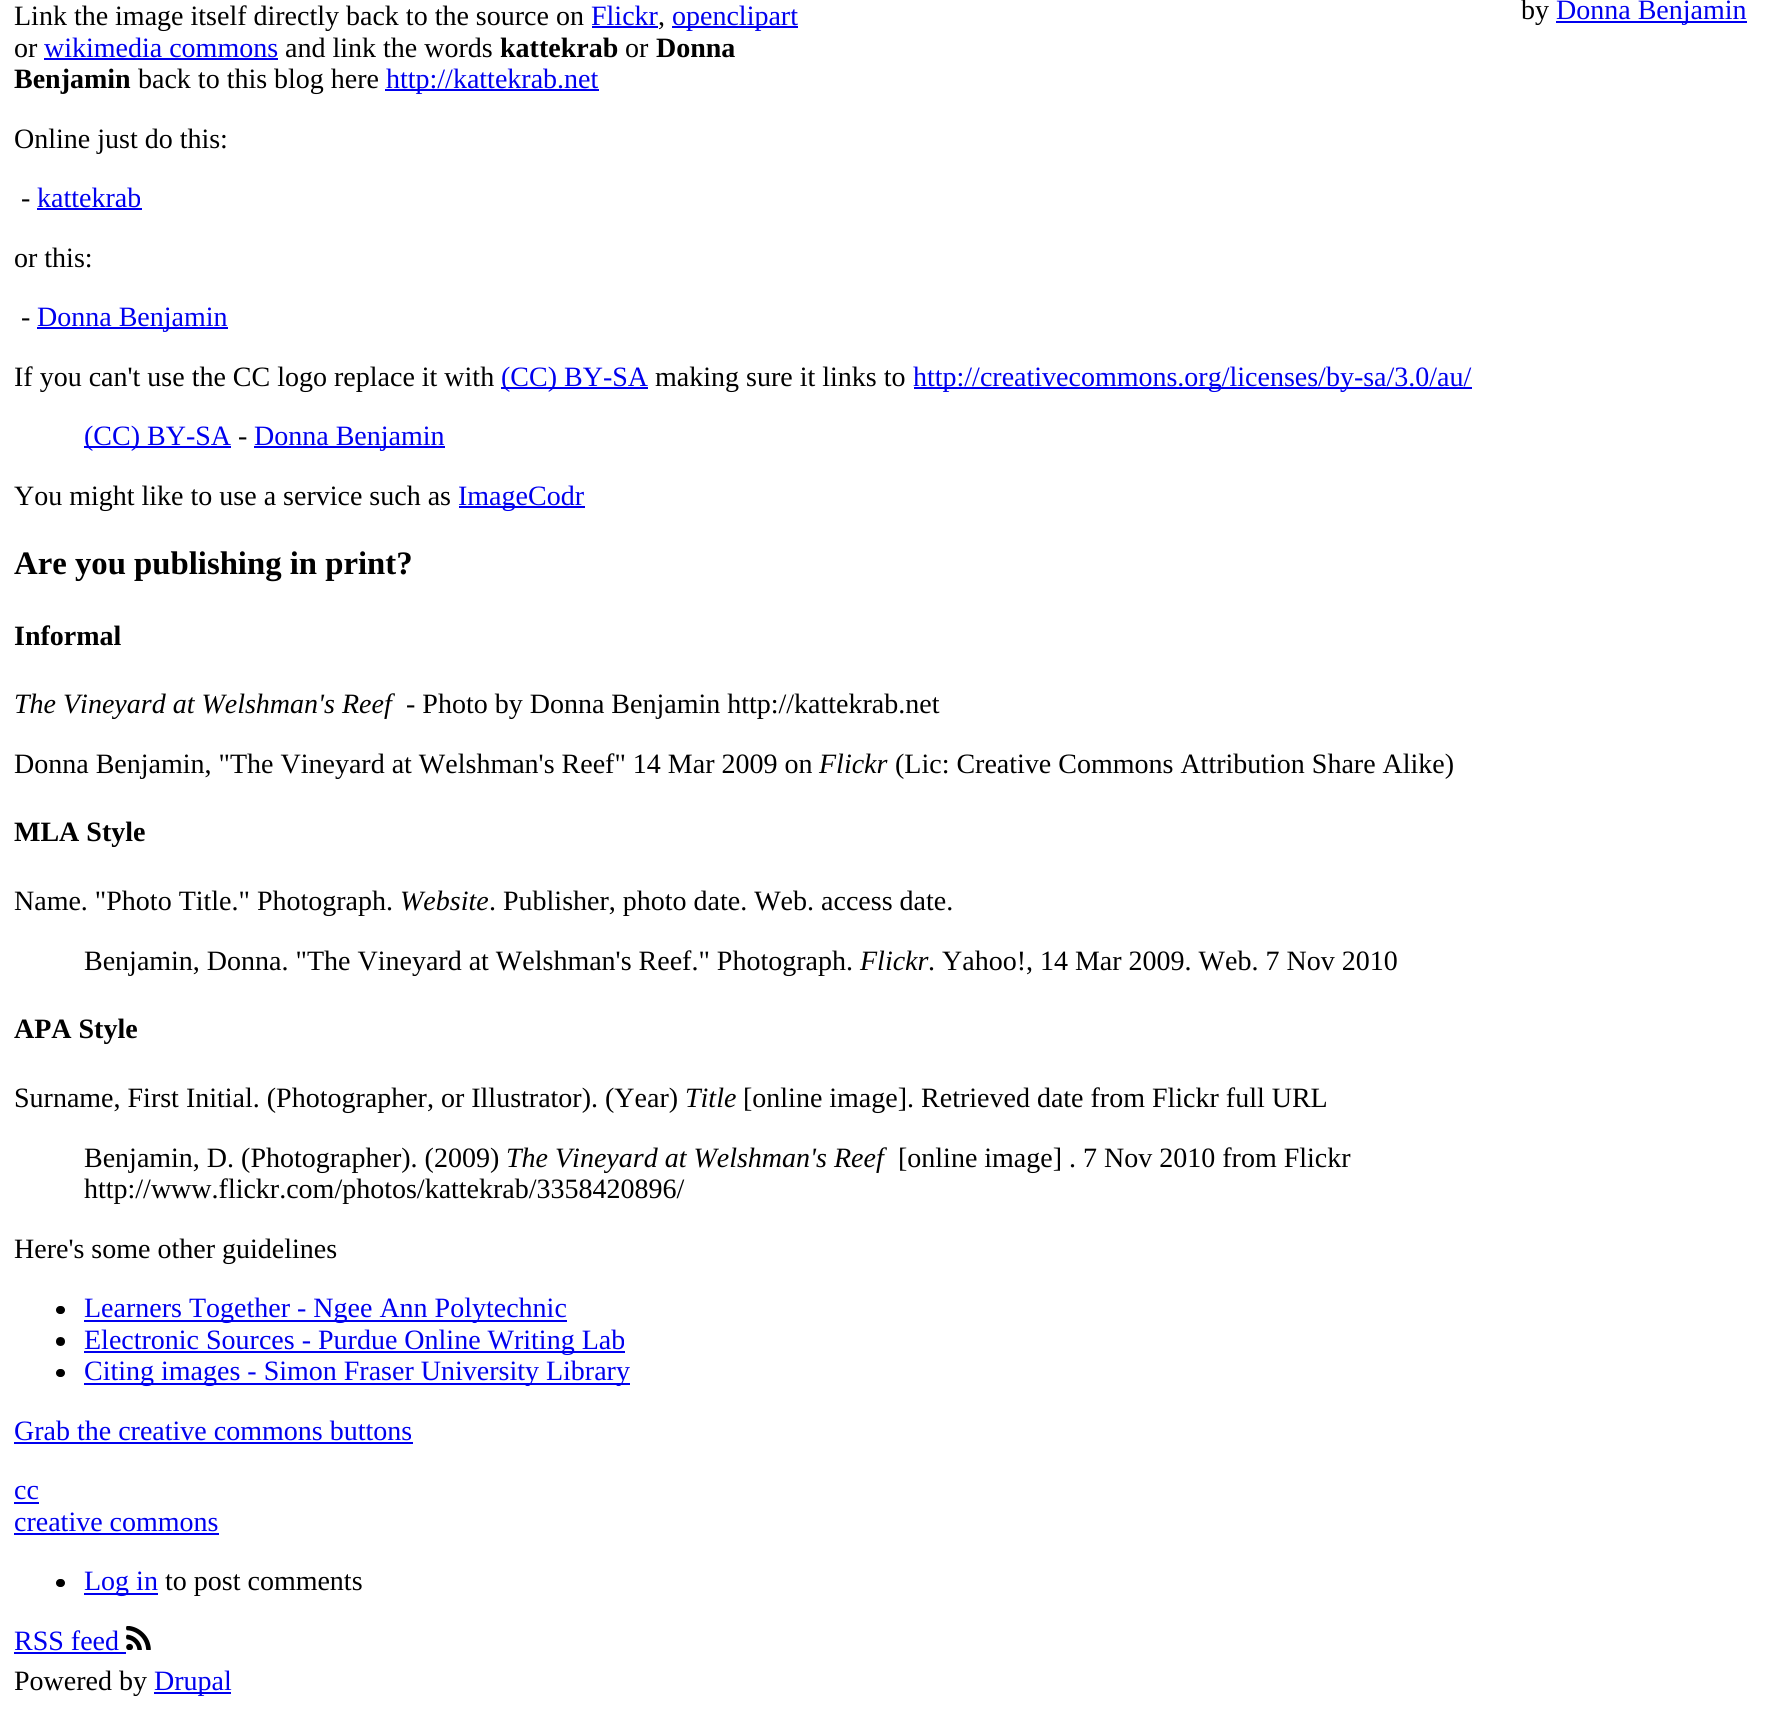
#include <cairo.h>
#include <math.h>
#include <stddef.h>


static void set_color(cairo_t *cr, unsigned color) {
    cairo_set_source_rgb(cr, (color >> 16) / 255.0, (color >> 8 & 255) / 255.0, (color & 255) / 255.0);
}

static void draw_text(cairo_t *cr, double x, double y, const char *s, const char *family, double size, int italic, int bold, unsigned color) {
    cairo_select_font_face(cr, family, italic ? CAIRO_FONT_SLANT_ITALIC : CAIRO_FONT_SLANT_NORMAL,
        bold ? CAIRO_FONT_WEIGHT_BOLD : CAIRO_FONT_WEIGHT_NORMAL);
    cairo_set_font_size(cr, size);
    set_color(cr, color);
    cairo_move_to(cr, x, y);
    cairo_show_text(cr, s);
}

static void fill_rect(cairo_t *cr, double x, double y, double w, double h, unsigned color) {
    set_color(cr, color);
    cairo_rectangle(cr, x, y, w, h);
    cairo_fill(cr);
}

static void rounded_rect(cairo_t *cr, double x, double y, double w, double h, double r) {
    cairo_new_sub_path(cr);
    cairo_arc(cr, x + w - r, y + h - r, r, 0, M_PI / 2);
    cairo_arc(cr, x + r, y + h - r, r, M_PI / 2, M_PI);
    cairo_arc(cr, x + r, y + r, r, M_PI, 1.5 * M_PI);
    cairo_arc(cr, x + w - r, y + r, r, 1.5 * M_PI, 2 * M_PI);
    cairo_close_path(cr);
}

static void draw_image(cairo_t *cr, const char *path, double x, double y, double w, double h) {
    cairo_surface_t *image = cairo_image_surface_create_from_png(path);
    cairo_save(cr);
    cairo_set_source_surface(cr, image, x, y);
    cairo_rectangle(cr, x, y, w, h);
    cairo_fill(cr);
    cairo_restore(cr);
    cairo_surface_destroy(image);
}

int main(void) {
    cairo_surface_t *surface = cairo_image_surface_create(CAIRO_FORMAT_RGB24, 1787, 1710);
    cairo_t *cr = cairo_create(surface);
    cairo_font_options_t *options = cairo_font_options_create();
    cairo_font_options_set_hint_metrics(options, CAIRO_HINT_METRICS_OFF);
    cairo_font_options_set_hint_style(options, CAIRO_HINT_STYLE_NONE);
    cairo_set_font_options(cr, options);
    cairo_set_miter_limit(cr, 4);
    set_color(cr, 0xFFFFFF);
    cairo_paint(cr);
    draw_text(cr, 14, 25, "Link the image itself directly back to the source on", "Liberation Serif", 28, 0, 0, 0x000000);
    draw_text(cr, 591, 25, "Flickr", "Liberation Serif", 28, 0, 0, 0x0000EE);
    fill_rect(cr, 592, 26, 66, 2, 0x0000EE);
    draw_text(cr, 658, 25, ",", "Liberation Serif", 28, 0, 0, 0x000000);
    fill_rect(cr, 672, 26, 126, 2, 0x0000EE);
    draw_text(cr, 672, 25, "openclipart", "Liberation Serif", 28, 0, 0, 0x0000EE);
    draw_text(cr, 14, 57, "or", "Liberation Serif", 28, 0, 0, 0x000000);
    draw_text(cr, 44, 57, "wikimedia commons", "Liberation Serif", 28, 0, 0, 0x0000EE);
    fill_rect(cr, 44, 58, 234, 2, 0x0000EE);
    draw_text(cr, 285, 57, "and link the words", "Liberation Serif", 28, 0, 0, 0x000000);
    draw_text(cr, 500, 57, "kattekrab", "Liberation Serif", 28, 0, 1, 0x000000);
    draw_text(cr, 625, 57, "or", "Liberation Serif", 28, 0, 0, 0x000000);
    draw_text(cr, 656, 57, "Donna", "Liberation Serif", 28, 0, 1, 0x000000);
    draw_text(cr, 14, 88, "Benjamin", "Liberation Serif", 28, 0, 1, 0x000000);
    draw_text(cr, 138, 88, "back to this blog here", "Liberation Serif", 28, 0, 0, 0x000000);
    fill_rect(cr, 385, 89, 214, 2, 0x0000EE);
    draw_text(cr, 386, 88, "http://kattekrab.net", "Liberation Serif", 28, 0, 0, 0x0000EE);
    draw_text(cr, 1521, 19, "by", "Liberation Serif", 28, 0, 0, 0x000000);
    fill_rect(cr, 1556, 21, 191, 2, 0x0000EE);
    draw_text(cr, 1556, 19, "Donna Benjamin", "Liberation Serif", 28, 0, 0, 0x0000EE);
    draw_text(cr, 14, 148, "Online just do this:", "Liberation Serif", 28, 0, 0, 0x000000);
    draw_text(cr, 21, 207, "-", "Liberation Serif", 28, 0, 0, 0x000000);
    draw_text(cr, 37, 207, "kattekrab", "Liberation Serif", 28, 0, 0, 0x0000EE);
    fill_rect(cr, 37, 208, 105, 2, 0x0000EE);
    draw_text(cr, 14, 267, "or this:", "Liberation Serif", 28, 0, 0, 0x000000);
    draw_text(cr, 21, 326, "-", "Liberation Serif", 28, 0, 0, 0x000000);
    fill_rect(cr, 37, 327, 191, 2, 0x0000EE);
    draw_text(cr, 37, 326, "Donna Benjamin", "Liberation Serif", 28, 0, 0, 0x0000EE);
    draw_text(cr, 14, 386, "If you can't use the CC logo replace it with", "Liberation Serif", 28, 0, 0, 0x000000);
    fill_rect(cr, 501, 387, 147, 2, 0x0000EE);
    draw_text(cr, 501, 386, "(CC) BY-SA", "Liberation Serif", 28, 0, 0, 0x0000EE);
    draw_text(cr, 655, 386, "making sure it links to", "Liberation Serif", 28, 0, 0, 0x000000);
    fill_rect(cr, 914, 387, 558, 2, 0x0000EE);
    draw_text(cr, 913, 386, "http://creativecommons.org/licenses/by-sa/3.0/au/", "Liberation Serif", 28, 0, 0, 0x0000EE);
    fill_rect(cr, 84, 446, 147, 2, 0x0000EE);
    draw_text(cr, 84, 445, "(CC) BY-SA", "Liberation Serif", 28, 0, 0, 0x0000EE);
    draw_text(cr, 238, 445, "-", "Liberation Serif", 28, 0, 0, 0x000000);
    fill_rect(cr, 254, 446, 191, 2, 0x0000EE);
    draw_text(cr, 254, 445, "Donna Benjamin", "Liberation Serif", 28, 0, 0, 0x0000EE);
    draw_text(cr, 14, 505, "You might like to use a service such as", "Liberation Serif", 28, 0, 0, 0x000000);
    fill_rect(cr, 459, 506, 126, 2, 0x0000EE);
    draw_text(cr, 458, 505, "ImageCodr", "Liberation Serif", 28, 0, 0, 0x0000EE);
    draw_text(cr, 14, 574, "Are you publishing in print?", "Liberation Serif", 32.75, 0, 1, 0x000000);
    draw_text(cr, 14, 645, "Informal", "Liberation Serif", 28, 0, 1, 0x000000);
    draw_text(cr, 14, 713, "The Vineyard at Welshman's Reef", "Liberation Serif", 28, 1, 0, 0x000000);
    draw_text(cr, 406, 713, "- Photo by Donna Benjamin http://kattekrab.net", "Liberation Serif", 28, 0, 0, 0x000000);
    draw_text(cr, 14, 773, "Donna Benjamin, \"The Vineyard at Welshman's Reef\" 14 Mar 2009 on", "Liberation Serif", 28, 0, 0, 0x000000);
    draw_text(cr, 819, 773, "Flickr", "Liberation Serif", 28, 1, 0, 0x000000);
    draw_text(cr, 895, 773, "(Lic: Creative Commons Attribution Share Alike)", "Liberation Serif", 28, 0, 0, 0x000000);
    draw_text(cr, 14, 841, "MLA Style", "Liberation Serif", 28, 0, 1, 0x000000);
    draw_text(cr, 14, 910, "Name. \"Photo Title.\" Photograph.", "Liberation Serif", 28, 0, 0, 0x000000);
    draw_text(cr, 400, 910, "Website", "Liberation Serif", 28, 1, 0, 0x000000);
    draw_text(cr, 489, 910, ". Publisher, photo date. Web. access date.", "Liberation Serif", 28, 0, 0, 0x000000);
    draw_text(cr, 84, 970, "Benjamin, Donna. \"The Vineyard at Welshman's Reef.\" Photograph.", "Liberation Serif", 28, 0, 0, 0x000000);
    draw_text(cr, 860, 970, "Flickr", "Liberation Serif", 28, 1, 0, 0x000000);
    draw_text(cr, 928, 970, ". Yahoo!, 14 Mar 2009. Web. 7 Nov 2010", "Liberation Serif", 28, 0, 0, 0x000000);
    draw_text(cr, 14, 1038, "APA Style", "Liberation Serif", 28, 0, 1, 0x000000);
    draw_text(cr, 14, 1107, "Surname, First Initial. (Photographer, or Illustrator). (Year)", "Liberation Serif", 28, 0, 0, 0x000000);
    draw_text(cr, 685, 1107, "Title", "Liberation Serif", 28, 1, 0, 0x000000);
    draw_text(cr, 743, 1107, "[online image]. Retrieved date from Flickr full URL", "Liberation Serif", 28, 0, 0, 0x000000);
    draw_text(cr, 84, 1167, "Benjamin, D. (Photographer). (2009)", "Liberation Serif", 28, 0, 0, 0x000000);
    draw_text(cr, 506, 1167, "The Vineyard at Welshman's Reef", "Liberation Serif", 28, 1, 0, 0x000000);
    draw_text(cr, 898, 1167, "[online image] . 7 Nov 2010 from Flickr", "Liberation Serif", 28, 0, 0, 0x000000);
    draw_text(cr, 84, 1198, "http://www.flickr.com/photos/kattekrab/3358420896/", "Liberation Serif", 28, 0, 0, 0x000000);
    draw_text(cr, 14, 1258, "Here's some other guidelines", "Liberation Serif", 28, 0, 0, 0x000000);
    rounded_rect(cr, 56, 1306, 9, 8, 4);
    cairo_fill(cr);
    fill_rect(cr, 84, 1320, 483, 2, 0x0000EE);
    draw_text(cr, 84, 1317, "Learners Together - Ngee Ann Polytechnic", "Liberation Serif", 28, 0, 0, 0x0000EE);
    set_color(cr, 0x000000);
    cairo_new_path(cr);
    cairo_arc(cr, 60.5, 1341.5, 4.5, 0, 2 * M_PI);
    cairo_fill(cr);
    fill_rect(cr, 84, 1351, 541, 2, 0x0000EE);
    draw_text(cr, 84, 1349, "Electronic Sources - Purdue Online Writing Lab", "Liberation Serif", 28, 0, 0, 0x0000EE);
    set_color(cr, 0x000000);
    rounded_rect(cr, 56, 1369, 9, 8, 4);
    cairo_fill(cr);
    fill_rect(cr, 84, 1383, 546, 2, 0x0000EE);
    draw_text(cr, 84, 1380, "Citing images - Simon Fraser University Library", "Liberation Serif", 28, 0, 0, 0x0000EE);
    draw_text(cr, 14, 1440, "Grab the creative commons buttons", "Liberation Serif", 28, 0, 0, 0x0000EE);
    fill_rect(cr, 14, 1442, 399, 2, 0x0000EE);
    draw_text(cr, 14, 1499, "cc", "Liberation Serif", 28, 0, 0, 0x0000EE);
    fill_rect(cr, 14, 1502, 25, 2, 0x0000EE);
    draw_text(cr, 14, 1531, "creative commons", "Liberation Serif", 28, 0, 0, 0x0000EE);
    fill_rect(cr, 14, 1533, 205, 2, 0x0000EE);
    set_color(cr, 0x000000);
    rounded_rect(cr, 56, 1579, 9, 8, 4);
    cairo_fill(cr);
    fill_rect(cr, 84, 1593, 74, 2, 0x0000EE);
    draw_text(cr, 84, 1590, "Log in", "Liberation Serif", 28, 0, 0, 0x0000EE);
    draw_text(cr, 165, 1590, "to post comments", "Liberation Serif", 28, 0, 0, 0x000000);
    draw_text(cr, 14, 1650, "RSS feed", "Liberation Serif", 28, 0, 0, 0x0000EE);
    fill_rect(cr, 14, 1652, 112, 2, 0x0000EE);
    draw_image(cr, "assets/img1.png", 126, 1626, 25, 24);
    draw_text(cr, 14, 1690, "Powered by", "Liberation Serif", 28, 0, 0, 0x000000);
    fill_rect(cr, 154, 1692, 77, 2, 0x0000EE);
    draw_text(cr, 154, 1690, "Drupal", "Liberation Serif", 28, 0, 0, 0x0000EE);
    cairo_surface_write_to_png(surface, "output.png");
    cairo_font_options_destroy(options);
    cairo_destroy(cr);
    cairo_surface_destroy(surface);
    return 0;
}
